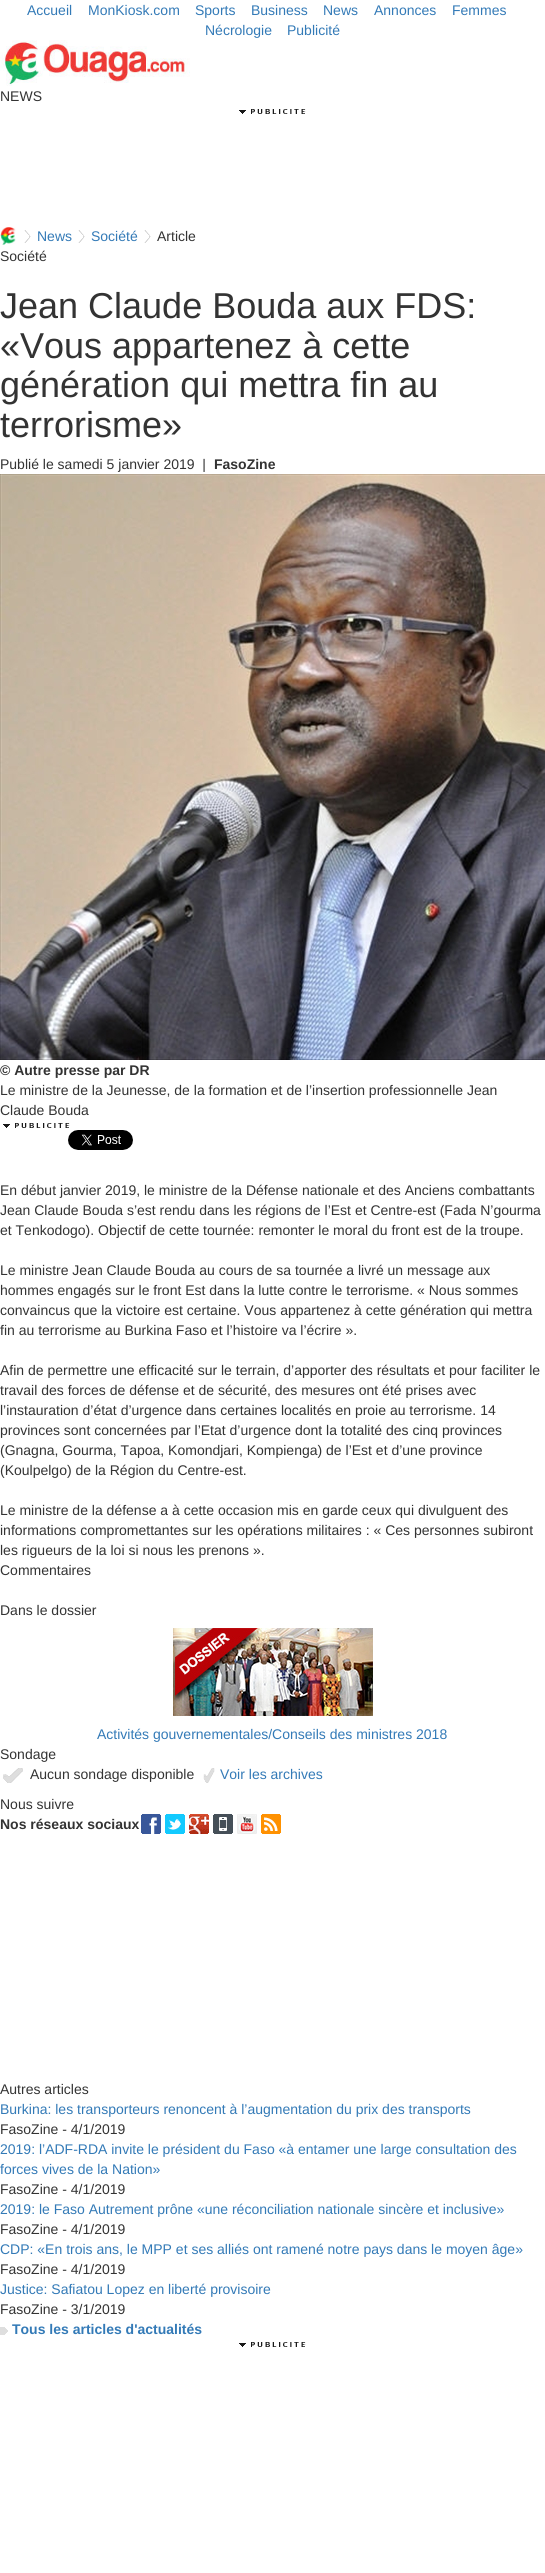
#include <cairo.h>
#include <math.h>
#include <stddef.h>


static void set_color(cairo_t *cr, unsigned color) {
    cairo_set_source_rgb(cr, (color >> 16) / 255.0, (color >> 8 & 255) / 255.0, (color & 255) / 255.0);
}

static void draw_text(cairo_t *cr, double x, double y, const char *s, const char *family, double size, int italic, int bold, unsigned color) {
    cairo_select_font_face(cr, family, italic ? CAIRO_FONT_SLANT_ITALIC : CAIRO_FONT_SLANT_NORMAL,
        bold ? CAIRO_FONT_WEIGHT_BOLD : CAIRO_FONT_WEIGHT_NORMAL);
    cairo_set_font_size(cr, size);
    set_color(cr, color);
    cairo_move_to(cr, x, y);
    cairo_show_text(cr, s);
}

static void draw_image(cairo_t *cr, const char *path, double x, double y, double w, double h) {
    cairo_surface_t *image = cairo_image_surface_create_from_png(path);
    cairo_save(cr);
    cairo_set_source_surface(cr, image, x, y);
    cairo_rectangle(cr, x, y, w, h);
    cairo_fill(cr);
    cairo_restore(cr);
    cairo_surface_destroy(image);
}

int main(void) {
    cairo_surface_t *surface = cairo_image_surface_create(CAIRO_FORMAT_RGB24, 545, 2573);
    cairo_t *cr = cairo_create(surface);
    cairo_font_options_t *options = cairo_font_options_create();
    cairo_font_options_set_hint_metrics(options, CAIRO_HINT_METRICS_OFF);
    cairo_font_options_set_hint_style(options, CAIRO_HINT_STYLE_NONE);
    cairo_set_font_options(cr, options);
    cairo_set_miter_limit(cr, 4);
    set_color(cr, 0xFFFFFF);
    cairo_paint(cr);
    draw_text(cr, 27, 15, "Accueil", "Liberation Sans", 14, 0, 0, 0x337AB7);
    draw_text(cr, 88, 15, "MonKiosk.com", "Liberation Sans", 14, 0, 0, 0x337AB7);
    draw_text(cr, 195, 15, "Sports", "Liberation Sans", 14, 0, 0, 0x337AB7);
    draw_text(cr, 251, 15, "Business", "Liberation Sans", 14, 0, 0, 0x337AB7);
    draw_text(cr, 323, 15, "News", "Liberation Sans", 14, 0, 0, 0x337AB7);
    draw_text(cr, 374, 15, "Annonces", "Liberation Sans", 14, 0, 0, 0x337AB7);
    draw_text(cr, 452, 15, "Femmes", "Liberation Sans", 14, 0, 0, 0x337AB7);
    draw_text(cr, 205, 35, "Nécrologie", "Liberation Sans", 14, 0, 0, 0x337AB7);
    draw_text(cr, 287, 35, "Publicité", "Liberation Sans", 14, 0, 0, 0x337AB7);
    draw_image(cr, "assets/img1.png", 0, 40, 190, 46);
    draw_text(cr, 0, 101, "NEWS", "Liberation Sans", 14, 0, 0, 0x333333);
    draw_image(cr, "assets/img2.png", 239, 109, 67, 5);
    draw_image(cr, "assets/img3.png", 0, 227, 16, 18);
    draw_image(cr, "assets/img4.png", 24, 230, 7, 13);
    draw_text(cr, 37, 241, "News", "Liberation Sans", 14, 0, 0, 0x337AB7);
    draw_image(cr, "assets/img4.png", 78, 230, 7, 13);
    draw_text(cr, 91, 241, "Société", "Liberation Sans", 14, 0, 0, 0x337AB7);
    draw_image(cr, "assets/img4.png", 144, 230, 7, 13);
    draw_text(cr, 157, 241, "Article", "Liberation Sans", 14, 0, 0, 0x333333);
    draw_text(cr, 0, 261, "Société", "Liberation Sans", 14, 0, 0, 0x333333);
    draw_text(cr, 0, 318, "Jean Claude Bouda aux FDS:", "Liberation Sans", 36, 0, 0, 0x333333);
    draw_text(cr, 0, 358, "«Vous appartenez à cette", "Liberation Sans", 36, 0, 0, 0x333333);
    draw_text(cr, 0, 397, "génération qui mettra fin au", "Liberation Sans", 36, 0, 0, 0x333333);
    draw_text(cr, 0, 437, "terrorisme»", "Liberation Sans", 36, 0, 0, 0x333333);
    draw_text(cr, 0, 469, "Publié le samedi 5 janvier 2019  |", "Liberation Sans", 14, 0, 0, 0x333333);
    draw_text(cr, 214, 469, "FasoZine", "Liberation Sans", 14, 0, 1, 0x333333);
    draw_image(cr, "assets/img5.png", 0, 474, 545, 586);
    draw_text(cr, 0, 1075, "© Autre presse par DR", "Liberation Sans", 14, 0, 1, 0x333333);
    draw_text(cr, 0, 1095, "Le ministre de la Jeunesse, de la formation et de l’insertion professionnelle Jean", "Liberation Sans", 14, 0, 0, 0x333333);
    draw_text(cr, 0, 1115, "Claude Bouda", "Liberation Sans", 14, 0, 0, 0x333333);
    draw_image(cr, "assets/img2.png", 3, 1123, 67, 5);
    draw_image(cr, "assets/img6.png", 68, 1130, 65, 20);
    draw_text(cr, 0, 1195, "En début janvier 2019, le ministre de la Défense nationale et des Anciens combattants", "Liberation Sans", 14, 0, 0, 0x333333);
    draw_text(cr, 0, 1215, "Jean Claude Bouda s’est rendu dans les régions de l’Est et Centre-est (Fada N’gourma", "Liberation Sans", 14, 0, 0, 0x333333);
    draw_text(cr, 0, 1235, "et Tenkodogo). Objectif de cette tournée: remonter le moral du front est de la troupe.", "Liberation Sans", 14, 0, 0, 0x333333);
    draw_text(cr, 0, 1275, "Le ministre Jean Claude Bouda au cours de sa tournée a livré un message aux", "Liberation Sans", 14, 0, 0, 0x333333);
    draw_text(cr, 0, 1295, "hommes engagés sur le front Est dans la lutte contre le terrorisme. « Nous sommes", "Liberation Sans", 14, 0, 0, 0x333333);
    draw_text(cr, 0, 1315, "convaincus que la victoire est certaine. Vous appartenez à cette génération qui mettra", "Liberation Sans", 14, 0, 0, 0x333333);
    draw_text(cr, 0, 1335, "fin au terrorisme au Burkina Faso et l’histoire va l’écrire ».", "Liberation Sans", 14, 0, 0, 0x333333);
    draw_text(cr, 0, 1375, "Afin de permettre une efficacité sur le terrain, d’apporter des résultats et pour faciliter le", "Liberation Sans", 14, 0, 0, 0x333333);
    draw_text(cr, 0, 1395, "travail des forces de défense et de sécurité, des mesures ont été prises avec", "Liberation Sans", 14, 0, 0, 0x333333);
    draw_text(cr, 0, 1415, "l’instauration d’état d’urgence dans certaines localités en proie au terrorisme. 14", "Liberation Sans", 14, 0, 0, 0x333333);
    draw_text(cr, 0, 1435, "provinces sont concernées par l’Etat d’urgence dont la totalité des cinq provinces", "Liberation Sans", 14, 0, 0, 0x333333);
    draw_text(cr, 0, 1455, "(Gnagna, Gourma, Tapoa, Komondjari, Kompienga) de l’Est et d’une province", "Liberation Sans", 14, 0, 0, 0x333333);
    draw_text(cr, 0, 1475, "(Koulpelgo) de la Région du Centre-est.", "Liberation Sans", 14, 0, 0, 0x333333);
    draw_text(cr, 0, 1515, "Le ministre de la défense a à cette occasion mis en garde ceux qui divulguent des", "Liberation Sans", 14, 0, 0, 0x333333);
    draw_text(cr, 0, 1535, "informations compromettantes sur les opérations militaires : « Ces personnes subiront", "Liberation Sans", 14, 0, 0, 0x333333);
    draw_text(cr, 0, 1555, "les rigueurs de la loi si nous les prenons ».", "Liberation Sans", 14, 0, 0, 0x333333);
    draw_text(cr, 0, 1575, "Commentaires", "Liberation Sans", 14, 0, 0, 0x333333);
    draw_text(cr, 0, 1615, "Dans le dossier", "Liberation Sans", 14, 0, 0, 0x333333);
    draw_image(cr, "assets/img7.png", 173, 1628, 200, 88);
    draw_text(cr, 97, 1739, "Activités gouvernementales/Conseils des ministres 2018", "Liberation Sans", 14, 0, 0, 0x337AB7);
    draw_text(cr, 0, 1759, "Sondage", "Liberation Sans", 14, 0, 0, 0x333333);
    draw_image(cr, "assets/img8.png", 3, 1768, 20, 15);
    draw_text(cr, 30, 1779, "Aucun sondage disponible", "Liberation Sans", 14, 0, 0, 0x333333);
    draw_image(cr, "assets/img9.png", 203, 1768, 12, 15);
    draw_text(cr, 220, 1779, "Voir les archives", "Liberation Sans", 14, 0, 0, 0x337AB7);
    draw_text(cr, 0, 1809, "Nous suivre", "Liberation Sans", 14, 0, 0, 0x333333);
    draw_text(cr, 0, 1829, "Nos réseaux sociaux", "Liberation Sans", 14, 0, 1, 0x333333);
    draw_image(cr, "assets/img10.png", 141, 1814, 20, 20);
    draw_image(cr, "assets/img11.png", 165, 1814, 20, 20);
    draw_image(cr, "assets/img12.png", 189, 1814, 20, 20);
    draw_image(cr, "assets/img13.png", 213, 1814, 20, 20);
    draw_image(cr, "assets/img14.png", 237, 1814, 20, 20);
    draw_image(cr, "assets/img15.png", 261, 1814, 20, 20);
    draw_text(cr, 0, 2094, "Autres articles", "Liberation Sans", 14, 0, 0, 0x333333);
    draw_text(cr, 0, 2114, "Burkina: les transporteurs renoncent à l’augmentation du prix des transports", "Liberation Sans", 14, 0, 0, 0x337AB7);
    draw_text(cr, 0, 2134, "FasoZine - 4/1/2019", "Liberation Sans", 14, 0, 0, 0x333333);
    draw_text(cr, 0, 2154, "2019: l’ADF-RDA invite le président du Faso «à entamer une large consultation des", "Liberation Sans", 14, 0, 0, 0x337AB7);
    draw_text(cr, 0, 2174, "forces vives de la Nation»", "Liberation Sans", 14, 0, 0, 0x337AB7);
    draw_text(cr, 0, 2194, "FasoZine - 4/1/2019", "Liberation Sans", 14, 0, 0, 0x333333);
    draw_text(cr, 0, 2214, "2019: le Faso Autrement prône «une réconciliation nationale sincère et inclusive»", "Liberation Sans", 14, 0, 0, 0x337AB7);
    draw_text(cr, 0, 2234, "FasoZine - 4/1/2019", "Liberation Sans", 14, 0, 0, 0x333333);
    draw_text(cr, 0, 2254, "CDP: «En trois ans, le MPP et ses alliés ont ramené notre pays dans le moyen âge»", "Liberation Sans", 14, 0, 0, 0x337AB7);
    draw_text(cr, 0, 2274, "FasoZine - 4/1/2019", "Liberation Sans", 14, 0, 0, 0x333333);
    draw_text(cr, 0, 2294, "Justice: Safiatou Lopez en liberté provisoire", "Liberation Sans", 14, 0, 0, 0x337AB7);
    draw_text(cr, 0, 2314, "FasoZine - 3/1/2019", "Liberation Sans", 14, 0, 0, 0x333333);
    draw_image(cr, "assets/img16.png", 0, 2327, 8, 8);
    draw_text(cr, 12, 2334, "Tous les articles d'actualités", "Liberation Sans", 14, 0, 1, 0x337AB7);
    draw_image(cr, "assets/img2.png", 239, 2342, 67, 5);
    cairo_surface_write_to_png(surface, "output.png");
    cairo_font_options_destroy(options);
    cairo_destroy(cr);
    cairo_surface_destroy(surface);
    return 0;
}
